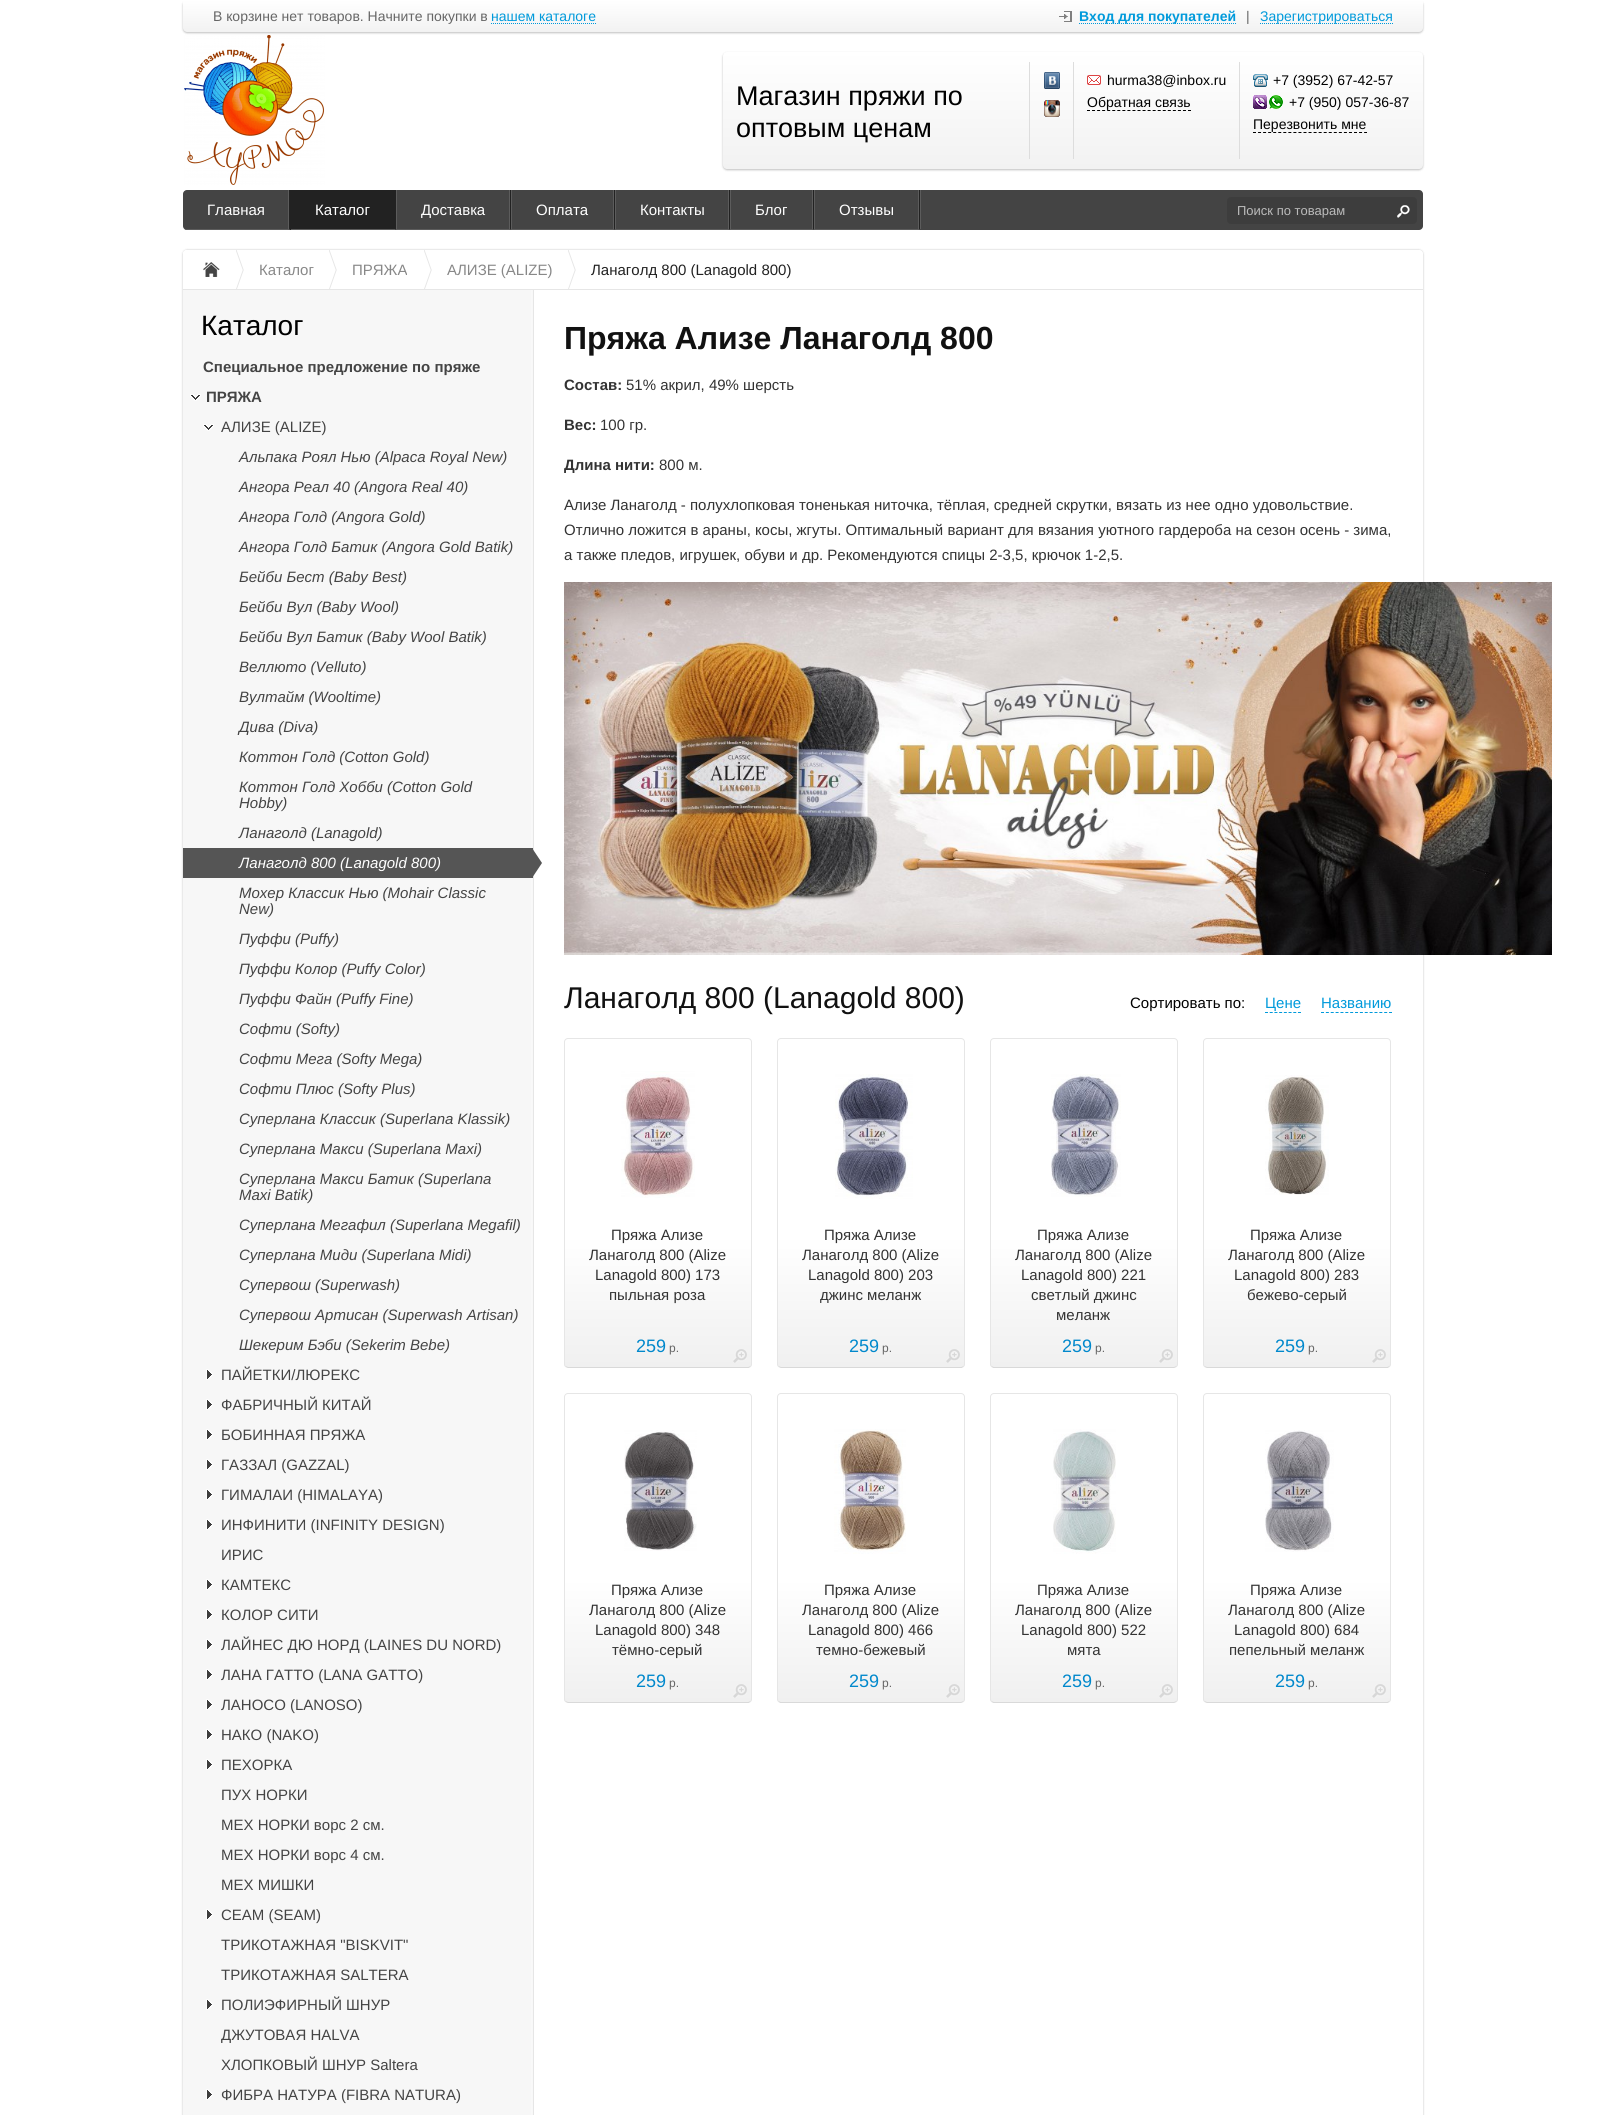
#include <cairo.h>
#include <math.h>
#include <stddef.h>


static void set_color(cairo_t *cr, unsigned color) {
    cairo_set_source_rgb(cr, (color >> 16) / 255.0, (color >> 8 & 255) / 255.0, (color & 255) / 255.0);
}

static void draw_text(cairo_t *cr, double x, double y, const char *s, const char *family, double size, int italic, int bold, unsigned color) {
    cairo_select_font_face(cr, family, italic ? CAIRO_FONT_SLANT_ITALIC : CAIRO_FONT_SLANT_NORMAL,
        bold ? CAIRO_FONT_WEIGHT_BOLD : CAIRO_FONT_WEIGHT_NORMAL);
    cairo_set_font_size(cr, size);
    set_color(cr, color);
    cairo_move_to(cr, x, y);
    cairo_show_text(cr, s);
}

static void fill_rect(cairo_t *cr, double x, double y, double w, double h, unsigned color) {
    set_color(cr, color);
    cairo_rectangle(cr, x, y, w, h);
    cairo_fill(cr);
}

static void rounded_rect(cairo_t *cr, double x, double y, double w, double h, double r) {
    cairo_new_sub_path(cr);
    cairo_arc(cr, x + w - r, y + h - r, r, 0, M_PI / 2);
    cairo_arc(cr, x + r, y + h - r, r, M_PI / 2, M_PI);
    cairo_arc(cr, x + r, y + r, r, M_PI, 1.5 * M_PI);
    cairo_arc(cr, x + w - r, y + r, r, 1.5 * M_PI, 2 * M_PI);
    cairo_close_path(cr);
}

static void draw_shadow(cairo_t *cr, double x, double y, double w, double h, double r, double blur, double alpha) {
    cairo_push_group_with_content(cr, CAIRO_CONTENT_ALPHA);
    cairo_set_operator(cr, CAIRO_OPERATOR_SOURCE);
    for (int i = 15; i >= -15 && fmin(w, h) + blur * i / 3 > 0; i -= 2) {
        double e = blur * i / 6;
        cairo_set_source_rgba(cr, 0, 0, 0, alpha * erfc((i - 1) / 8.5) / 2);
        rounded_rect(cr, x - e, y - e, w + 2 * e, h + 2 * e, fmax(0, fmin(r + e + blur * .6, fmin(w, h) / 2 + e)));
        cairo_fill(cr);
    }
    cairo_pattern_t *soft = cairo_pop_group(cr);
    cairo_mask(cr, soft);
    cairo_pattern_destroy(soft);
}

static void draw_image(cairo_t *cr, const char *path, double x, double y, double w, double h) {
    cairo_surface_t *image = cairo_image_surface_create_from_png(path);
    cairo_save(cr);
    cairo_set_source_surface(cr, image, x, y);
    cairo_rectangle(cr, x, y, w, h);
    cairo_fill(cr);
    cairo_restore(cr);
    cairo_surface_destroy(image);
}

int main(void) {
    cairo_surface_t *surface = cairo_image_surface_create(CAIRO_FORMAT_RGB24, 1605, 2115);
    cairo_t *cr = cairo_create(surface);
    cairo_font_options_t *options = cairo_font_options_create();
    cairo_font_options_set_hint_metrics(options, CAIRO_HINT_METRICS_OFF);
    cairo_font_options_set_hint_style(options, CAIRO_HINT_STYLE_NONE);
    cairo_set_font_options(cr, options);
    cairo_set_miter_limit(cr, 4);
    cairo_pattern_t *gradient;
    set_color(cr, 0xFFFFFF);
    cairo_paint(cr);
    draw_image(cr, "assets/img2.png", 184, 35, 141, 150);
    set_color(cr, 0x000000);
    draw_shadow(cr, 183, 1, 1240, 32, 4, 1, 0.25);
    gradient = cairo_pattern_create_linear(183, 0, 183, 32);
    cairo_pattern_add_color_stop_rgba(gradient, 0, 1, 1, 1, 1);
    cairo_pattern_add_color_stop_rgba(gradient, 1, 0.949, 0.949, 0.949, 1);
    cairo_set_source(cr, gradient);
    cairo_pattern_destroy(gradient);
    cairo_new_path(cr);
    cairo_move_to(cr, 183, 0);
    cairo_line_to(cr, 1423, 0);
    cairo_line_to(cr, 1423, 28);
    cairo_curve_to(cr, 1423, 30, 1421, 32, 1419, 32);
    cairo_line_to(cr, 187, 32);
    cairo_curve_to(cr, 185, 32, 183, 30, 183, 28);
    cairo_close_path(cr);
    cairo_fill(cr);
    draw_text(cr, 213, 21, "В корзине нет товаров. Начните покупки в", "Liberation Sans", 14, 0, 0, 0x666666);
    cairo_new_path(cr);
    cairo_move_to(cr, 491, 23.5);
    cairo_line_to(cr, 596, 23.5);
    set_color(cr, 0x009ADB);
    cairo_set_line_width(cr, 1);
    cairo_set_dash(cr, (double[]){1, 1}, 2, 0);
    cairo_stroke(cr);
    draw_text(cr, 491, 21, "нашем каталоге", "Liberation Sans", 14, 0, 0, 0x009ADB);
    draw_image(cr, "assets/img1.png", 1059, 11, 13, 11);
    cairo_new_path(cr);
    cairo_move_to(cr, 1079, 23.5);
    cairo_line_to(cr, 1236, 23.5);
    cairo_stroke(cr);
    draw_text(cr, 1079, 21, "Вход для покупателей", "Liberation Sans", 14, 0, 1, 0x009ADB);
    draw_text(cr, 1246, 21, "|", "Liberation Sans", 14, 0, 0, 0x666666);
    cairo_new_path(cr);
    cairo_move_to(cr, 1260, 23.5);
    cairo_line_to(cr, 1393, 23.5);
    set_color(cr, 0x009ADB);
    cairo_stroke(cr);
    draw_text(cr, 1260, 21, "Зарегистрироваться", "Liberation Sans", 14, 0, 0, 0x009ADB);
    set_color(cr, 0x000000);
    draw_shadow(cr, 723, 53, 700, 117, 4, 1, 0.25);
    gradient = cairo_pattern_create_linear(1073, 52, 1073, 169);
    cairo_pattern_add_color_stop_rgba(gradient, 0, 1, 1, 1, 1);
    cairo_pattern_add_color_stop_rgba(gradient, 1, 0.949, 0.949, 0.949, 1);
    cairo_set_source(cr, gradient);
    cairo_pattern_destroy(gradient);
    rounded_rect(cr, 723, 52, 700, 117, 4);
    cairo_fill(cr);
    fill_rect(cr, 1029, 62, 1, 97, 0xDDDDDD);
    draw_text(cr, 736, 105, "Магазин пряжи по", "Liberation Sans", 27, 0, 0, 0x000000);
    draw_text(cr, 736, 137, "оптовым ценам", "Liberation Sans", 27, 0, 0, 0x000000);
    fill_rect(cr, 1073, 62, 1, 97, 0xDDDDDD);
    draw_image(cr, "assets/img3.png", 1044, 72, 16, 17);
    draw_image(cr, "assets/img4.png", 1044, 100, 16, 17);
    fill_rect(cr, 1239, 62, 1, 97, 0xDDDDDD);
    draw_image(cr, "assets/img5.png", 1087, 75, 14, 10);
    draw_text(cr, 1107, 85, "hurma38@inbox.ru", "Liberation Sans", 14, 0, 0, 0x000000);
    cairo_new_path(cr);
    cairo_move_to(cr, 1087, 110.5);
    cairo_line_to(cr, 1191, 110.5);
    cairo_set_dash(cr, (double[]){3, 2.05}, 2, 0);
    cairo_stroke(cr);
    draw_text(cr, 1087, 107, "Обратная связь", "Liberation Sans", 14, 0, 0, 0x000000);
    draw_image(cr, "assets/img6.png", 1253, 74, 15, 13);
    draw_text(cr, 1273, 85, "+7 (3952) 67-42-57", "Liberation Sans", 14, 0, 0, 0x000000);
    draw_image(cr, "assets/img7.png", 1253, 95, 30, 14);
    draw_text(cr, 1289, 107, "+7 (950) 057-36-87", "Liberation Sans", 14, 0, 0, 0x000000);
    cairo_new_path(cr);
    cairo_move_to(cr, 1253, 132.5);
    cairo_line_to(cr, 1367, 132.5);
    cairo_stroke(cr);
    draw_text(cr, 1253, 129, "Перезвонить мне", "Liberation Sans", 14, 0, 0, 0x000000);
    set_color(cr, 0x444444);
    rounded_rect(cr, 183, 190, 1240, 40, 4);
    cairo_fill(cr);
    fill_rect(cr, 288, 190, 1, 40, 0x5C5C5C);
    cairo_save(cr);
    rounded_rect(cr, 183, 190, 1240, 40, 4);
    cairo_clip(cr);
    fill_rect(cr, 183, 229, 106, 1, 0x5C5C5C);
    cairo_restore(cr);
    draw_text(cr, 207, 215, "Главная", "Liberation Sans", 15, 0, 0, 0xFFFFFF);
    fill_rect(cr, 289, 190, 1, 39, 0x222222);
    fill_rect(cr, 291, 190, 105, 39, 0x222222);
    fill_rect(cr, 290, 229, 105, 1, 0x5C5C5C);
    fill_rect(cr, 290, 190, 1, 40, 0x222222);
    draw_text(cr, 315, 215, "Каталог", "Liberation Sans", 15, 0, 0, 0xFFFFFF);
    fill_rect(cr, 509, 190, 1, 40, 0x5C5C5C);
    fill_rect(cr, 396, 229, 114, 1, 0x5C5C5C);
    fill_rect(cr, 396, 190, 1, 40, 0x5C5C5C);
    draw_text(cr, 421, 215, "Доставка", "Liberation Sans", 15, 0, 0, 0xFFFFFF);
    fill_rect(cr, 510, 190, 1, 39, 0x222222);
    fill_rect(cr, 613, 190, 1, 40, 0x5C5C5C);
    fill_rect(cr, 511, 229, 103, 1, 0x5C5C5C);
    fill_rect(cr, 511, 190, 1, 40, 0x5C5C5C);
    draw_text(cr, 536, 215, "Оплата", "Liberation Sans", 15, 0, 0, 0xFFFFFF);
    fill_rect(cr, 614, 190, 1, 39, 0x222222);
    fill_rect(cr, 728, 190, 1, 40, 0x5C5C5C);
    fill_rect(cr, 615, 229, 114, 1, 0x5C5C5C);
    fill_rect(cr, 615, 190, 1, 40, 0x5C5C5C);
    draw_text(cr, 640, 215, "Контакты", "Liberation Sans", 15, 0, 0, 0xFFFFFF);
    fill_rect(cr, 729, 190, 1, 39, 0x222222);
    fill_rect(cr, 812, 190, 1, 40, 0x5C5C5C);
    fill_rect(cr, 730, 229, 83, 1, 0x5C5C5C);
    fill_rect(cr, 730, 190, 1, 40, 0x5C5C5C);
    draw_text(cr, 755, 215, "Блог", "Liberation Sans", 15, 0, 0, 0xFFFFFF);
    fill_rect(cr, 813, 190, 1, 39, 0x222222);
    fill_rect(cr, 918, 190, 1, 40, 0x5C5C5C);
    fill_rect(cr, 814, 229, 105, 1, 0x5C5C5C);
    fill_rect(cr, 814, 190, 1, 40, 0x5C5C5C);
    draw_text(cr, 839, 215, "Отзывы", "Liberation Sans", 15, 0, 0, 0xFFFFFF);
    fill_rect(cr, 919, 190, 1, 39, 0x222222);
    fill_rect(cr, 920, 190, 1, 39, 0x5C5C5C);
    cairo_set_source_rgba(cr, 0, 0, 0, 0.1);
    rounded_rect(cr, 1227, 197, 190, 27, 4);
    cairo_fill(cr);
    draw_text(cr, 1237, 215, "Поиск по товарам", "Liberation Sans", 13, 0, 0, 0xBBBBBB);
    draw_image(cr, "assets/img8.png", 1397, 205, 13, 13);
    set_color(cr, 0x000000);
    draw_shadow(cr, 183, 250, 1240, 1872, 4, 1, 0.25);
    set_color(cr, 0xFFFFFF);
    rounded_rect(cr, 183, 250, 1240, 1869, 4);
    cairo_fill(cr);
    draw_image(cr, "assets/img9.png", 183, 250, 351, 1865);
    cairo_new_path(cr);
    cairo_move_to(cr, 187, 250);
    cairo_line_to(cr, 1419, 250);
    cairo_curve_to(cr, 1421, 250, 1423, 252, 1423, 254);
    cairo_line_to(cr, 1423, 290);
    cairo_line_to(cr, 183, 290);
    cairo_line_to(cr, 183, 254);
    cairo_curve_to(cr, 183, 252, 185, 250, 187, 250);
    cairo_close_path(cr);
    cairo_fill(cr);
    fill_rect(cr, 183, 289, 1240, 1, 0xE6E6E6);
    draw_image(cr, "assets/img10.png", 203, 262, 17, 15);
    draw_image(cr, "assets/img11.png", 236, 250, 8, 39);
    draw_text(cr, 259, 275, "Каталог", "Liberation Sans", 15, 0, 0, 0x888888);
    draw_image(cr, "assets/img11.png", 329, 250, 8, 39);
    draw_text(cr, 352, 275, "ПРЯЖА", "Liberation Sans", 15, 0, 0, 0x888888);
    draw_image(cr, "assets/img11.png", 424, 250, 8, 39);
    draw_text(cr, 447, 275, "АЛИЗЕ (ALIZE)", "Liberation Sans", 15, 0, 0, 0x888888);
    draw_image(cr, "assets/img11.png", 568, 250, 8, 39);
    draw_text(cr, 591, 275, "Ланаголд 800 (Lanagold 800)", "Liberation Sans", 15, 0, 0, 0x222222);
    fill_rect(cr, 183, 290, 348, 1825, 0xF7F7F7);
    draw_text(cr, 201, 335, "Каталог", "Liberation Sans", 28, 0, 0, 0x000000);
    draw_text(cr, 203, 372, "Специальное предложение по пряже", "Liberation Sans", 15, 0, 1, 0x444444);
    draw_image(cr, "assets/img12.png", 190, 394, 11, 7);
    draw_text(cr, 206, 402, "ПРЯЖА", "Liberation Sans", 15, 0, 1, 0x444444);
    draw_image(cr, "assets/img12.png", 203, 424, 11, 7);
    draw_text(cr, 221, 432, "АЛИЗЕ (ALIZE)", "Liberation Sans", 15, 0, 0, 0x444444);
    draw_text(cr, 239, 462, "Альпака Роял Нью (Alpaca Royal New)", "Liberation Sans", 15, 1, 0, 0x444444);
    draw_text(cr, 239, 492, "Ангора Реал 40 (Angora Real 40)", "Liberation Sans", 15, 1, 0, 0x444444);
    draw_text(cr, 239, 522, "Ангора Голд (Angora Gold)", "Liberation Sans", 15, 1, 0, 0x444444);
    draw_text(cr, 239, 552, "Ангора Голд Батик (Angora Gold Batik)", "Liberation Sans", 15, 1, 0, 0x444444);
    draw_text(cr, 239, 582, "Бейби Бест (Baby Best)", "Liberation Sans", 15, 1, 0, 0x444444);
    draw_text(cr, 239, 612, "Бейби Вул (Baby Wool)", "Liberation Sans", 15, 1, 0, 0x444444);
    draw_text(cr, 239, 642, "Бейби Вул Батик (Baby Wool Batik)", "Liberation Sans", 15, 1, 0, 0x444444);
    draw_text(cr, 239, 672, "Веллюто (Velluto)", "Liberation Sans", 15, 1, 0, 0x444444);
    draw_text(cr, 239, 702, "Вултайм (Wooltime)", "Liberation Sans", 15, 1, 0, 0x444444);
    draw_text(cr, 239, 732, "Дива (Diva)", "Liberation Sans", 15, 1, 0, 0x444444);
    draw_text(cr, 239, 762, "Коттон Голд (Cotton Gold)", "Liberation Sans", 15, 1, 0, 0x444444);
    draw_text(cr, 239, 792, "Коттон Голд Хобби (Cotton Gold", "Liberation Sans", 15, 1, 0, 0x444444);
    draw_text(cr, 239, 808, "Hobby)", "Liberation Sans", 15, 1, 0, 0x444444);
    draw_text(cr, 239, 838, "Ланаголд (Lanagold)", "Liberation Sans", 15, 1, 0, 0x444444);
    fill_rect(cr, 183, 848, 350, 30, 0x555555);
    draw_text(cr, 239, 868, "Ланаголд 800 (Lanagold 800)", "Liberation Sans", 15, 1, 0, 0xFFFFFF);
    set_color(cr, 0x555555);
    cairo_new_path(cr);
    cairo_move_to(cr, 532, 878);
    cairo_line_to(cr, 532, 848);
    cairo_line_to(cr, 542, 863);
    cairo_close_path(cr);
    cairo_fill(cr);
    draw_text(cr, 239, 898, "Мохер Классик Нью (Mohair Classic", "Liberation Sans", 15, 1, 0, 0x444444);
    draw_text(cr, 239, 914, "New)", "Liberation Sans", 15, 1, 0, 0x444444);
    draw_text(cr, 239, 944, "Пуффи (Puffy)", "Liberation Sans", 15, 1, 0, 0x444444);
    draw_text(cr, 239, 974, "Пуффи Колор (Puffy Color)", "Liberation Sans", 15, 1, 0, 0x444444);
    draw_text(cr, 239, 1004, "Пуффи Файн (Puffy Fine)", "Liberation Sans", 15, 1, 0, 0x444444);
    draw_text(cr, 239, 1034, "Софти (Softy)", "Liberation Sans", 15, 1, 0, 0x444444);
    draw_text(cr, 239, 1064, "Софти Мега (Softy Mega)", "Liberation Sans", 15, 1, 0, 0x444444);
    draw_text(cr, 239, 1094, "Софти Плюс (Softy Plus)", "Liberation Sans", 15, 1, 0, 0x444444);
    draw_text(cr, 239, 1124, "Суперлана Классик (Superlana Klassik)", "Liberation Sans", 15, 1, 0, 0x444444);
    draw_text(cr, 239, 1154, "Суперлана Макси (Superlana Maxi)", "Liberation Sans", 15, 1, 0, 0x444444);
    draw_text(cr, 239, 1184, "Суперлана Макси Батик (Superlana", "Liberation Sans", 15, 1, 0, 0x444444);
    draw_text(cr, 239, 1200, "Maxi Batik)", "Liberation Sans", 15, 1, 0, 0x444444);
    draw_text(cr, 239, 1230, "Суперлана Мегафил (Superlana Megafil)", "Liberation Sans", 15, 1, 0, 0x444444);
    draw_text(cr, 239, 1260, "Суперлана Миди (Superlana Midi)", "Liberation Sans", 15, 1, 0, 0x444444);
    draw_text(cr, 239, 1290, "Супервош (Superwash)", "Liberation Sans", 15, 1, 0, 0x444444);
    draw_text(cr, 239, 1320, "Супервош Артисан (Superwash Artisan)", "Liberation Sans", 15, 1, 0, 0x444444);
    draw_text(cr, 239, 1350, "Шекерим Бэби (Sekerim Bebe)", "Liberation Sans", 15, 1, 0, 0x444444);
    draw_image(cr, "assets/img13.png", 206, 1369, 7, 11);
    draw_text(cr, 221, 1380, "ПАЙЕТКИ/ЛЮРЕКС", "Liberation Sans", 15, 0, 0, 0x444444);
    draw_image(cr, "assets/img13.png", 206, 1399, 7, 11);
    draw_text(cr, 221, 1410, "ФАБРИЧНЫЙ КИТАЙ", "Liberation Sans", 15, 0, 0, 0x444444);
    draw_image(cr, "assets/img13.png", 206, 1429, 7, 11);
    draw_text(cr, 221, 1440, "БОБИННАЯ ПРЯЖА", "Liberation Sans", 15, 0, 0, 0x444444);
    draw_image(cr, "assets/img13.png", 206, 1459, 7, 11);
    draw_text(cr, 221, 1470, "ГАЗЗАЛ (GAZZAL)", "Liberation Sans", 15, 0, 0, 0x444444);
    draw_image(cr, "assets/img13.png", 206, 1489, 7, 11);
    draw_text(cr, 221, 1500, "ГИМАЛАИ (HIMALAYA)", "Liberation Sans", 15, 0, 0, 0x444444);
    draw_image(cr, "assets/img13.png", 206, 1519, 7, 11);
    draw_text(cr, 221, 1530, "ИНФИНИТИ (INFINITY DESIGN)", "Liberation Sans", 15, 0, 0, 0x444444);
    draw_text(cr, 221, 1560, "ИРИС", "Liberation Sans", 15, 0, 0, 0x444444);
    draw_image(cr, "assets/img13.png", 206, 1579, 7, 11);
    draw_text(cr, 221, 1590, "КАМТЕКС", "Liberation Sans", 15, 0, 0, 0x444444);
    draw_image(cr, "assets/img13.png", 206, 1609, 7, 11);
    draw_text(cr, 221, 1620, "КОЛОР СИТИ", "Liberation Sans", 15, 0, 0, 0x444444);
    draw_image(cr, "assets/img13.png", 206, 1639, 7, 11);
    draw_text(cr, 221, 1650, "ЛАЙНЕС ДЮ НОРД (LAINES DU NORD)", "Liberation Sans", 15, 0, 0, 0x444444);
    draw_image(cr, "assets/img13.png", 206, 1669, 7, 11);
    draw_text(cr, 221, 1680, "ЛАНА ГАТТО (LANA GATTO)", "Liberation Sans", 15, 0, 0, 0x444444);
    draw_image(cr, "assets/img13.png", 206, 1699, 7, 11);
    draw_text(cr, 221, 1710, "ЛАНОСО (LANOSO)", "Liberation Sans", 15, 0, 0, 0x444444);
    draw_image(cr, "assets/img13.png", 206, 1729, 7, 11);
    draw_text(cr, 221, 1740, "НАКО (NAKO)", "Liberation Sans", 15, 0, 0, 0x444444);
    draw_image(cr, "assets/img13.png", 206, 1759, 7, 11);
    draw_text(cr, 221, 1770, "ПЕХОРКА", "Liberation Sans", 15, 0, 0, 0x444444);
    draw_text(cr, 221, 1800, "ПУХ НОРКИ", "Liberation Sans", 15, 0, 0, 0x444444);
    draw_text(cr, 221, 1830, "МЕХ НОРКИ ворс 2 см.", "Liberation Sans", 15, 0, 0, 0x444444);
    draw_text(cr, 221, 1860, "МЕХ НОРКИ ворс 4 см.", "Liberation Sans", 15, 0, 0, 0x444444);
    draw_text(cr, 221, 1890, "МЕХ МИШКИ", "Liberation Sans", 15, 0, 0, 0x444444);
    draw_image(cr, "assets/img13.png", 206, 1909, 7, 11);
    draw_text(cr, 221, 1920, "CЕАМ (SEAM)", "Liberation Sans", 15, 0, 0, 0x444444);
    draw_text(cr, 221, 1950, "ТРИКОТАЖНАЯ \"BISKVIT\"", "Liberation Sans", 15, 0, 0, 0x444444);
    draw_text(cr, 221, 1980, "ТРИКОТАЖНАЯ SALTERA", "Liberation Sans", 15, 0, 0, 0x444444);
    draw_image(cr, "assets/img13.png", 206, 1999, 7, 11);
    draw_text(cr, 221, 2010, "ПОЛИЭФИРНЫЙ ШНУР", "Liberation Sans", 15, 0, 0, 0x444444);
    draw_text(cr, 221, 2040, "ДЖУТОВАЯ HALVA", "Liberation Sans", 15, 0, 0, 0x444444);
    draw_text(cr, 221, 2070, "ХЛОПКОВЫЙ ШНУР Saltera", "Liberation Sans", 15, 0, 0, 0x444444);
    draw_image(cr, "assets/img13.png", 206, 2089, 7, 11);
    draw_text(cr, 221, 2100, "ФИБРА НАТУРА (FIBRA NATURA)", "Liberation Sans", 15, 0, 0, 0x444444);
    draw_text(cr, 564, 349, "Пряжа Ализе Ланаголд 800", "Liberation Sans", 32, 0, 1, 0x111111);
    draw_text(cr, 564, 390, "Cостав:", "Liberation Sans", 15, 0, 1, 0x333333);
    draw_text(cr, 626, 390, "51% акрил, 49% шерсть", "Liberation Sans", 15, 0, 0, 0x333333);
    draw_text(cr, 564, 430, "Вес:", "Liberation Sans", 15, 0, 1, 0x333333);
    draw_text(cr, 600, 430, "100 гр.", "Liberation Sans", 15, 0, 0, 0x333333);
    draw_text(cr, 564, 470, "Длина нити:", "Liberation Sans", 15, 0, 1, 0x333333);
    draw_text(cr, 659, 470, "800 м.", "Liberation Sans", 15, 0, 0, 0x333333);
    draw_text(cr, 564, 510, "Ализе Ланаголд - полухлопковая тоненькая ниточка, тёплая, средней скрутки, вязать из нее одно удовольствие.", "Liberation Sans", 15, 0, 0, 0x333333);
    draw_text(cr, 564, 535, "Отлично ложится в араны, косы, жгуты. Оптимальный вариант для вязания уютного гардероба на сезон осень - зима,", "Liberation Sans", 15, 0, 0, 0x333333);
    draw_text(cr, 564, 560, "а также пледов, игрушек, обуви и др. Рекомендуются спицы 2-3,5, крючок 1-2,5.", "Liberation Sans", 15, 0, 0, 0x333333);
    draw_image(cr, "assets/img14.png", 564, 582, 988, 373);
    draw_text(cr, 564, 1008, "Ланаголд 800 (Lanagold 800)", "Liberation Sans", 30, 0, 0, 0x111111);
    draw_text(cr, 1130, 1008, "Сортировать по:", "Liberation Sans", 15, 0, 0, 0x000000);
    cairo_new_path(cr);
    cairo_move_to(cr, 1265, 1012.5);
    cairo_line_to(cr, 1301, 1012.5);
    set_color(cr, 0x009ADB);
    cairo_set_dash(cr, (double[]){3, 1.71}, 2, 0);
    cairo_stroke(cr);
    draw_text(cr, 1265, 1008, "Цене", "Liberation Sans", 15, 0, 0, 0x009ADB);
    cairo_new_path(cr);
    cairo_move_to(cr, 1321, 1012.5);
    cairo_line_to(cr, 1392, 1012.5);
    cairo_set_dash(cr, (double[]){3, 1.86}, 2, 0);
    cairo_stroke(cr);
    draw_text(cr, 1321, 1008, "Названию", "Liberation Sans", 15, 0, 0, 0x009ADB);
    cairo_save(cr);
    rounded_rect(cr, 564, 1038, 188, 330, 4);
    cairo_clip(cr);
    gradient = cairo_pattern_create_linear(658, 1039, 658, 1367);
    cairo_pattern_add_color_stop_rgba(gradient, 0.6, 1, 1, 1, 1);
    cairo_pattern_add_color_stop_rgba(gradient, 1, 0.941, 0.941, 0.941, 1);
    cairo_set_source(cr, gradient);
    cairo_pattern_destroy(gradient);
    cairo_rectangle(cr, 564, 1039, 188, 328);
    cairo_fill(cr);
    cairo_restore(cr);
    cairo_new_path(cr);
    cairo_move_to(cr, 750.5, 1366.5);
    cairo_line_to(cr, 748.5, 1367.5);
    cairo_line_to(cr, 598, 1367.5);
    cairo_line_to(cr, 568, 1367.5);
    cairo_line_to(cr, 565.5, 1366.5);
    set_color(cr, 0xD9D9D9);
    cairo_set_dash(cr, NULL, 0, 0);
    cairo_stroke(cr);
    cairo_new_path(cr);
    cairo_move_to(cr, 565.5, 1366.5);
    cairo_curve_to(cr, 565, 1366, 564.5, 1365, 564.5, 1364);
    cairo_line_to(cr, 564.5, 1042);
    cairo_curve_to(cr, 564.5, 1041, 565, 1040, 565.5, 1039.5);
    cairo_curve_to(cr, 566, 1039, 567, 1038.5, 568, 1038.5);
    cairo_line_to(cr, 748, 1038.5);
    cairo_curve_to(cr, 749, 1038.5, 750, 1039, 750.5, 1039.5);
    cairo_curve_to(cr, 751, 1040, 751.5, 1041, 751.5, 1042);
    cairo_line_to(cr, 751.5, 1364);
    cairo_curve_to(cr, 751.5, 1365, 751, 1366, 750.5, 1366.5);
    set_color(cr, 0xE6E6E6);
    cairo_stroke(cr);
    draw_image(cr, "assets/img15.png", 621, 1071, 74, 127);
    draw_text(cr, 611, 1240, "Пряжа Ализе", "Liberation Sans", 15, 0, 0, 0x333333);
    draw_text(cr, 589, 1260, "Ланаголд 800 (Alize", "Liberation Sans", 15, 0, 0, 0x333333);
    draw_text(cr, 595, 1280, "Lanagold 800) 173", "Liberation Sans", 15, 0, 0, 0x333333);
    draw_text(cr, 609, 1300, "пыльная роза", "Liberation Sans", 15, 0, 0, 0x333333);
    draw_text(cr, 636, 1352, "259", "Liberation Sans", 18, 0, 0, 0x0088CC);
    draw_text(cr, 669, 1352, "р.", "Liberation Sans", 12, 0, 0, 0x666666);
    draw_image(cr, "assets/img16.png", 733, 1349, 14, 14);
    cairo_save(cr);
    rounded_rect(cr, 777, 1038, 188, 330, 4);
    cairo_clip(cr);
    gradient = cairo_pattern_create_linear(871, 1039, 871, 1367);
    cairo_pattern_add_color_stop_rgba(gradient, 0.6, 1, 1, 1, 1);
    cairo_pattern_add_color_stop_rgba(gradient, 1, 0.941, 0.941, 0.941, 1);
    cairo_set_source(cr, gradient);
    cairo_pattern_destroy(gradient);
    cairo_rectangle(cr, 777, 1039, 188, 328);
    cairo_fill(cr);
    cairo_restore(cr);
    cairo_new_path(cr);
    cairo_move_to(cr, 963.5, 1366.5);
    cairo_line_to(cr, 961.5, 1367.5);
    cairo_line_to(cr, 811, 1367.5);
    cairo_line_to(cr, 781, 1367.5);
    cairo_line_to(cr, 778.5, 1366.5);
    set_color(cr, 0xD9D9D9);
    cairo_stroke(cr);
    cairo_new_path(cr);
    cairo_move_to(cr, 778.5, 1366.5);
    cairo_curve_to(cr, 778, 1366, 777.5, 1365, 777.5, 1364);
    cairo_line_to(cr, 777.5, 1042);
    cairo_curve_to(cr, 777.5, 1041, 778, 1040, 778.5, 1039.5);
    cairo_curve_to(cr, 779, 1039, 780, 1038.5, 781, 1038.5);
    cairo_line_to(cr, 961, 1038.5);
    cairo_curve_to(cr, 962, 1038.5, 963, 1039, 963.5, 1039.5);
    cairo_curve_to(cr, 964, 1040, 964.5, 1041, 964.5, 1042);
    cairo_line_to(cr, 964.5, 1364);
    cairo_curve_to(cr, 964.5, 1365, 964, 1366, 963.5, 1366.5);
    set_color(cr, 0xE6E6E6);
    cairo_stroke(cr);
    draw_image(cr, "assets/img17.png", 835, 1074, 78, 125);
    draw_text(cr, 824, 1240, "Пряжа Ализе", "Liberation Sans", 15, 0, 0, 0x333333);
    draw_text(cr, 802, 1260, "Ланаголд 800 (Alize", "Liberation Sans", 15, 0, 0, 0x333333);
    draw_text(cr, 808, 1280, "Lanagold 800) 203", "Liberation Sans", 15, 0, 0, 0x333333);
    draw_text(cr, 820, 1300, "джинс меланж", "Liberation Sans", 15, 0, 0, 0x333333);
    draw_text(cr, 849, 1352, "259", "Liberation Sans", 18, 0, 0, 0x0088CC);
    draw_text(cr, 882, 1352, "р.", "Liberation Sans", 12, 0, 0, 0x666666);
    draw_image(cr, "assets/img16.png", 946, 1349, 14, 14);
    cairo_save(cr);
    rounded_rect(cr, 990, 1038, 188, 330, 4);
    cairo_clip(cr);
    gradient = cairo_pattern_create_linear(1084, 1039, 1084, 1367);
    cairo_pattern_add_color_stop_rgba(gradient, 0.6, 1, 1, 1, 1);
    cairo_pattern_add_color_stop_rgba(gradient, 1, 0.941, 0.941, 0.941, 1);
    cairo_set_source(cr, gradient);
    cairo_pattern_destroy(gradient);
    cairo_rectangle(cr, 990, 1039, 188, 328);
    cairo_fill(cr);
    cairo_restore(cr);
    cairo_new_path(cr);
    cairo_move_to(cr, 1176.5, 1366.5);
    cairo_line_to(cr, 1174, 1367.5);
    cairo_line_to(cr, 993.5, 1367.5);
    cairo_line_to(cr, 991.5, 1366.5);
    set_color(cr, 0xD9D9D9);
    cairo_stroke(cr);
    cairo_new_path(cr);
    cairo_move_to(cr, 991.5, 1366.5);
    cairo_curve_to(cr, 991, 1366, 990.5, 1365, 990.5, 1364);
    cairo_line_to(cr, 990.5, 1042);
    cairo_curve_to(cr, 990.5, 1041, 991, 1040, 991.5, 1039.5);
    cairo_curve_to(cr, 992, 1039, 993, 1038.5, 994, 1038.5);
    cairo_line_to(cr, 1174, 1038.5);
    cairo_curve_to(cr, 1175, 1038.5, 1176, 1039, 1176.5, 1039.5);
    cairo_curve_to(cr, 1177, 1040, 1177.5, 1041, 1177.5, 1042);
    cairo_line_to(cr, 1177.5, 1364);
    cairo_curve_to(cr, 1177.5, 1365, 1177, 1366, 1176.5, 1366.5);
    set_color(cr, 0xE6E6E6);
    cairo_stroke(cr);
    draw_image(cr, "assets/img18.png", 1051, 1074, 70, 123);
    draw_text(cr, 1037, 1240, "Пряжа Ализе", "Liberation Sans", 15, 0, 0, 0x333333);
    draw_text(cr, 1015, 1260, "Ланаголд 800 (Alize", "Liberation Sans", 15, 0, 0, 0x333333);
    draw_text(cr, 1021, 1280, "Lanagold 800) 221", "Liberation Sans", 15, 0, 0, 0x333333);
    draw_text(cr, 1031, 1300, "светлый джинс", "Liberation Sans", 15, 0, 0, 0x333333);
    draw_text(cr, 1056, 1320, "меланж", "Liberation Sans", 15, 0, 0, 0x333333);
    draw_text(cr, 1062, 1352, "259", "Liberation Sans", 18, 0, 0, 0x0088CC);
    draw_text(cr, 1095, 1352, "р.", "Liberation Sans", 12, 0, 0, 0x666666);
    draw_image(cr, "assets/img16.png", 1159, 1349, 14, 14);
    cairo_save(cr);
    rounded_rect(cr, 1203, 1038, 188, 330, 4);
    cairo_clip(cr);
    gradient = cairo_pattern_create_linear(1297, 1039, 1297, 1367);
    cairo_pattern_add_color_stop_rgba(gradient, 0.6, 1, 1, 1, 1);
    cairo_pattern_add_color_stop_rgba(gradient, 1, 0.941, 0.941, 0.941, 1);
    cairo_set_source(cr, gradient);
    cairo_pattern_destroy(gradient);
    cairo_rectangle(cr, 1203, 1039, 188, 328);
    cairo_fill(cr);
    cairo_restore(cr);
    cairo_new_path(cr);
    cairo_move_to(cr, 1389.5, 1366.5);
    cairo_line_to(cr, 1387.5, 1367.5);
    cairo_line_to(cr, 1237, 1367.5);
    cairo_line_to(cr, 1207, 1367.5);
    cairo_line_to(cr, 1204.5, 1366.5);
    set_color(cr, 0xD9D9D9);
    cairo_stroke(cr);
    cairo_new_path(cr);
    cairo_move_to(cr, 1204.5, 1366.5);
    cairo_curve_to(cr, 1204, 1366, 1203.5, 1365, 1203.5, 1364);
    cairo_line_to(cr, 1203.5, 1042);
    cairo_curve_to(cr, 1203.5, 1041, 1204, 1040, 1204.5, 1039.5);
    cairo_curve_to(cr, 1205, 1039, 1206, 1038.5, 1207, 1038.5);
    cairo_line_to(cr, 1387, 1038.5);
    cairo_curve_to(cr, 1388, 1038.5, 1389, 1039, 1389.5, 1039.5);
    cairo_curve_to(cr, 1390, 1040, 1390.5, 1041, 1390.5, 1042);
    cairo_line_to(cr, 1390.5, 1364);
    cairo_curve_to(cr, 1390.5, 1365, 1390, 1366, 1389.5, 1366.5);
    set_color(cr, 0xE6E6E6);
    cairo_stroke(cr);
    draw_image(cr, "assets/img19.png", 1265, 1075, 64, 120);
    draw_text(cr, 1250, 1240, "Пряжа Ализе", "Liberation Sans", 15, 0, 0, 0x333333);
    draw_text(cr, 1228, 1260, "Ланаголд 800 (Alize", "Liberation Sans", 15, 0, 0, 0x333333);
    draw_text(cr, 1234, 1280, "Lanagold 800) 283", "Liberation Sans", 15, 0, 0, 0x333333);
    draw_text(cr, 1247, 1300, "бежево-серый", "Liberation Sans", 15, 0, 0, 0x333333);
    draw_text(cr, 1275, 1352, "259", "Liberation Sans", 18, 0, 0, 0x0088CC);
    draw_text(cr, 1308, 1352, "р.", "Liberation Sans", 12, 0, 0, 0x666666);
    draw_image(cr, "assets/img16.png", 1372, 1349, 14, 14);
    cairo_save(cr);
    rounded_rect(cr, 564, 1393, 188, 310, 4);
    cairo_clip(cr);
    gradient = cairo_pattern_create_linear(658, 1394, 658, 1702);
    cairo_pattern_add_color_stop_rgba(gradient, 0.6, 1, 1, 1, 1);
    cairo_pattern_add_color_stop_rgba(gradient, 1, 0.941, 0.941, 0.941, 1);
    cairo_set_source(cr, gradient);
    cairo_pattern_destroy(gradient);
    cairo_rectangle(cr, 564, 1394, 188, 308);
    cairo_fill(cr);
    cairo_restore(cr);
    cairo_new_path(cr);
    cairo_move_to(cr, 750.5, 1701.5);
    cairo_line_to(cr, 748.5, 1702.5);
    cairo_line_to(cr, 598, 1702.5);
    cairo_line_to(cr, 568, 1702.5);
    cairo_line_to(cr, 565.5, 1701.5);
    set_color(cr, 0xD9D9D9);
    cairo_stroke(cr);
    cairo_new_path(cr);
    cairo_move_to(cr, 565.5, 1701.5);
    cairo_curve_to(cr, 565, 1701, 564.5, 1700, 564.5, 1699);
    cairo_line_to(cr, 564.5, 1397);
    cairo_curve_to(cr, 564.5, 1396, 565, 1395, 565.5, 1394.5);
    cairo_curve_to(cr, 566, 1394, 567, 1393.5, 568, 1393.5);
    cairo_line_to(cr, 748, 1393.5);
    cairo_curve_to(cr, 749, 1393.5, 750, 1394, 750.5, 1394.5);
    cairo_curve_to(cr, 751, 1395, 751.5, 1396, 751.5, 1397);
    cairo_line_to(cr, 751.5, 1699);
    cairo_curve_to(cr, 751.5, 1700, 751, 1701, 750.5, 1701.5);
    set_color(cr, 0xE6E6E6);
    cairo_stroke(cr);
    draw_image(cr, "assets/img20.png", 624, 1430, 73, 121);
    draw_text(cr, 611, 1595, "Пряжа Ализе", "Liberation Sans", 15, 0, 0, 0x333333);
    draw_text(cr, 589, 1615, "Ланаголд 800 (Alize", "Liberation Sans", 15, 0, 0, 0x333333);
    draw_text(cr, 595, 1635, "Lanagold 800) 348", "Liberation Sans", 15, 0, 0, 0x333333);
    draw_text(cr, 612, 1655, "тёмно-серый", "Liberation Sans", 15, 0, 0, 0x333333);
    draw_text(cr, 636, 1687, "259", "Liberation Sans", 18, 0, 0, 0x0088CC);
    draw_text(cr, 669, 1687, "р.", "Liberation Sans", 12, 0, 0, 0x666666);
    draw_image(cr, "assets/img21.png", 733, 1684, 14, 14);
    cairo_save(cr);
    rounded_rect(cr, 777, 1393, 188, 310, 4);
    cairo_clip(cr);
    gradient = cairo_pattern_create_linear(871, 1394, 871, 1702);
    cairo_pattern_add_color_stop_rgba(gradient, 0.6, 1, 1, 1, 1);
    cairo_pattern_add_color_stop_rgba(gradient, 1, 0.941, 0.941, 0.941, 1);
    cairo_set_source(cr, gradient);
    cairo_pattern_destroy(gradient);
    cairo_rectangle(cr, 777, 1394, 188, 308);
    cairo_fill(cr);
    cairo_restore(cr);
    cairo_new_path(cr);
    cairo_move_to(cr, 963.5, 1701.5);
    cairo_line_to(cr, 961, 1702.5);
    cairo_line_to(cr, 780.5, 1702.5);
    cairo_line_to(cr, 778.5, 1701.5);
    set_color(cr, 0xD9D9D9);
    cairo_stroke(cr);
    cairo_new_path(cr);
    cairo_move_to(cr, 778.5, 1701.5);
    cairo_curve_to(cr, 778, 1701, 777.5, 1700, 777.5, 1699);
    cairo_line_to(cr, 777.5, 1397);
    cairo_curve_to(cr, 777.5, 1396, 778, 1395, 778.5, 1394.5);
    cairo_curve_to(cr, 779, 1394, 780, 1393.5, 781, 1393.5);
    cairo_line_to(cr, 961, 1393.5);
    cairo_curve_to(cr, 962, 1393.5, 963, 1394, 963.5, 1394.5);
    cairo_curve_to(cr, 964, 1395, 964.5, 1396, 964.5, 1397);
    cairo_line_to(cr, 964.5, 1699);
    cairo_curve_to(cr, 964.5, 1700, 964, 1701, 963.5, 1701.5);
    set_color(cr, 0xE6E6E6);
    cairo_stroke(cr);
    draw_image(cr, "assets/img22.png", 834, 1429, 72, 125);
    draw_text(cr, 824, 1595, "Пряжа Ализе", "Liberation Sans", 15, 0, 0, 0x333333);
    draw_text(cr, 802, 1615, "Ланаголд 800 (Alize", "Liberation Sans", 15, 0, 0, 0x333333);
    draw_text(cr, 808, 1635, "Lanagold 800) 466", "Liberation Sans", 15, 0, 0, 0x333333);
    draw_text(cr, 816, 1655, "темно-бежевый", "Liberation Sans", 15, 0, 0, 0x333333);
    draw_text(cr, 849, 1687, "259", "Liberation Sans", 18, 0, 0, 0x0088CC);
    draw_text(cr, 882, 1687, "р.", "Liberation Sans", 12, 0, 0, 0x666666);
    draw_image(cr, "assets/img21.png", 946, 1684, 14, 14);
    cairo_save(cr);
    rounded_rect(cr, 990, 1393, 188, 310, 4);
    cairo_clip(cr);
    gradient = cairo_pattern_create_linear(1084, 1394, 1084, 1702);
    cairo_pattern_add_color_stop_rgba(gradient, 0.6, 1, 1, 1, 1);
    cairo_pattern_add_color_stop_rgba(gradient, 1, 0.941, 0.941, 0.941, 1);
    cairo_set_source(cr, gradient);
    cairo_pattern_destroy(gradient);
    cairo_rectangle(cr, 990, 1394, 188, 308);
    cairo_fill(cr);
    cairo_restore(cr);
    cairo_new_path(cr);
    cairo_move_to(cr, 1176.5, 1701.5);
    cairo_line_to(cr, 1174, 1702.5);
    cairo_line_to(cr, 993.5, 1702.5);
    cairo_line_to(cr, 991.5, 1701.5);
    set_color(cr, 0xD9D9D9);
    cairo_stroke(cr);
    cairo_new_path(cr);
    cairo_move_to(cr, 991.5, 1701.5);
    cairo_curve_to(cr, 991, 1701, 990.5, 1700, 990.5, 1699);
    cairo_line_to(cr, 990.5, 1397);
    cairo_curve_to(cr, 990.5, 1396, 991, 1395, 991.5, 1394.5);
    cairo_curve_to(cr, 992, 1394, 993, 1393.5, 994, 1393.5);
    cairo_line_to(cr, 1174, 1393.5);
    cairo_curve_to(cr, 1175, 1393.5, 1176, 1394, 1176.5, 1394.5);
    cairo_curve_to(cr, 1177, 1395, 1177.5, 1396, 1177.5, 1397);
    cairo_line_to(cr, 1177.5, 1699);
    cairo_curve_to(cr, 1177.5, 1700, 1177, 1701, 1176.5, 1701.5);
    set_color(cr, 0xE6E6E6);
    cairo_stroke(cr);
    draw_image(cr, "assets/img23.png", 1053, 1429, 63, 125);
    draw_text(cr, 1037, 1595, "Пряжа Ализе", "Liberation Sans", 15, 0, 0, 0x333333);
    draw_text(cr, 1015, 1615, "Ланаголд 800 (Alize", "Liberation Sans", 15, 0, 0, 0x333333);
    draw_text(cr, 1021, 1635, "Lanagold 800) 522", "Liberation Sans", 15, 0, 0, 0x333333);
    draw_text(cr, 1067, 1655, "мята", "Liberation Sans", 15, 0, 0, 0x333333);
    draw_text(cr, 1062, 1687, "259", "Liberation Sans", 18, 0, 0, 0x0088CC);
    draw_text(cr, 1095, 1687, "р.", "Liberation Sans", 12, 0, 0, 0x666666);
    draw_image(cr, "assets/img21.png", 1159, 1684, 14, 14);
    cairo_save(cr);
    rounded_rect(cr, 1203, 1393, 188, 310, 4);
    cairo_clip(cr);
    gradient = cairo_pattern_create_linear(1297, 1394, 1297, 1702);
    cairo_pattern_add_color_stop_rgba(gradient, 0.6, 1, 1, 1, 1);
    cairo_pattern_add_color_stop_rgba(gradient, 1, 0.941, 0.941, 0.941, 1);
    cairo_set_source(cr, gradient);
    cairo_pattern_destroy(gradient);
    cairo_rectangle(cr, 1203, 1394, 188, 308);
    cairo_fill(cr);
    cairo_restore(cr);
    cairo_new_path(cr);
    cairo_move_to(cr, 1389.5, 1701.5);
    cairo_line_to(cr, 1387.5, 1702.5);
    cairo_line_to(cr, 1237, 1702.5);
    cairo_line_to(cr, 1207, 1702.5);
    cairo_line_to(cr, 1204.5, 1701.5);
    set_color(cr, 0xD9D9D9);
    cairo_stroke(cr);
    cairo_new_path(cr);
    cairo_move_to(cr, 1204.5, 1701.5);
    cairo_curve_to(cr, 1204, 1701, 1203.5, 1700, 1203.5, 1699);
    cairo_line_to(cr, 1203.5, 1397);
    cairo_curve_to(cr, 1203.5, 1396, 1204, 1395, 1204.5, 1394.5);
    cairo_curve_to(cr, 1205, 1394, 1206, 1393.5, 1207, 1393.5);
    cairo_line_to(cr, 1387, 1393.5);
    cairo_curve_to(cr, 1388, 1393.5, 1389, 1394, 1389.5, 1394.5);
    cairo_curve_to(cr, 1390, 1395, 1390.5, 1396, 1390.5, 1397);
    cairo_line_to(cr, 1390.5, 1699);
    cairo_curve_to(cr, 1390.5, 1700, 1390, 1701, 1389.5, 1701.5);
    set_color(cr, 0xE6E6E6);
    cairo_stroke(cr);
    draw_image(cr, "assets/img24.png", 1265, 1430, 69, 122);
    draw_text(cr, 1250, 1595, "Пряжа Ализе", "Liberation Sans", 15, 0, 0, 0x333333);
    draw_text(cr, 1228, 1615, "Ланаголд 800 (Alize", "Liberation Sans", 15, 0, 0, 0x333333);
    draw_text(cr, 1234, 1635, "Lanagold 800) 684", "Liberation Sans", 15, 0, 0, 0x333333);
    draw_text(cr, 1229, 1655, "пепельный меланж", "Liberation Sans", 15, 0, 0, 0x333333);
    draw_text(cr, 1275, 1687, "259", "Liberation Sans", 18, 0, 0, 0x0088CC);
    draw_text(cr, 1308, 1687, "р.", "Liberation Sans", 12, 0, 0, 0x666666);
    draw_image(cr, "assets/img21.png", 1372, 1684, 14, 14);
    cairo_surface_write_to_png(surface, "output.png");
    cairo_font_options_destroy(options);
    cairo_destroy(cr);
    cairo_surface_destroy(surface);
    return 0;
}
